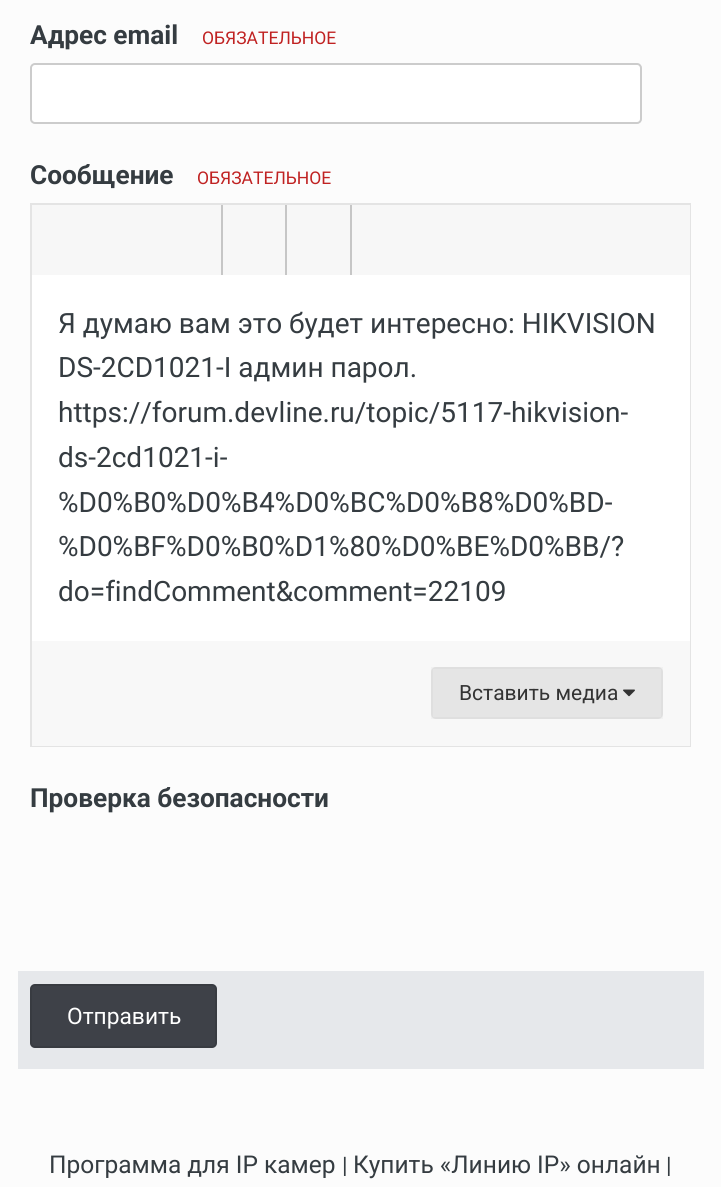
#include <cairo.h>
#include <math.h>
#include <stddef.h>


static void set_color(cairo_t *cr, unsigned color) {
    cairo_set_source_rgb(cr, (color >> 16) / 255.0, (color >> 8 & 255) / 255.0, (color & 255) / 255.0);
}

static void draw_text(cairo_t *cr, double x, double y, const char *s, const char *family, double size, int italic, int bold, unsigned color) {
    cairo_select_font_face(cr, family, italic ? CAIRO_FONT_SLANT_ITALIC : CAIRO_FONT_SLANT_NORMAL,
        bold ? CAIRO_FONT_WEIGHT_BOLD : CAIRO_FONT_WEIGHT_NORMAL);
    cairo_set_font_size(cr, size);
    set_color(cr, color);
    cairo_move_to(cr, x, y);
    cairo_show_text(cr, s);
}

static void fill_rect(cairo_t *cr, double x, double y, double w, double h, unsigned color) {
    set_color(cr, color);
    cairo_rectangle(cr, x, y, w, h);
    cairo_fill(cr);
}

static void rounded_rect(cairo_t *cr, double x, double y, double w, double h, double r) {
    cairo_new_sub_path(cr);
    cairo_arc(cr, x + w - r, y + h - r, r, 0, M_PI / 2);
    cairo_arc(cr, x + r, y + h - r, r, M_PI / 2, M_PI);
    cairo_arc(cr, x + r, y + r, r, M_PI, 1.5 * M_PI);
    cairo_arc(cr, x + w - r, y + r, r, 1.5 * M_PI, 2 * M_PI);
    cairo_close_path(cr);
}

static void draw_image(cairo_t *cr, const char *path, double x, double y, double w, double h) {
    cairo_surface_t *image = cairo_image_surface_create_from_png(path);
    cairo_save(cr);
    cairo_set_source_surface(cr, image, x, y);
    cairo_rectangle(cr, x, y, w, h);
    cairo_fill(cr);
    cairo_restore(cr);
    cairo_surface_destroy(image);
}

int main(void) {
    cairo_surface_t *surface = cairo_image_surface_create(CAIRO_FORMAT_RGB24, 721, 1187);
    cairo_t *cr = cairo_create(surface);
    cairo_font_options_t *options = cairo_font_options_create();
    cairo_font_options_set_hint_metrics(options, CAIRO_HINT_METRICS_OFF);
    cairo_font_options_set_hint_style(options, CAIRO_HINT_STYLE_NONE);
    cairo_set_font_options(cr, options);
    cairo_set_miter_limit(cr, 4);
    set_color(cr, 0xFCFCFC);
    cairo_paint(cr);
    draw_text(cr, 30, 44, "Адрес email", "Roboto", 26.25, 0, 1, 0x353C41);
    draw_text(cr, 202, 44, "ОБЯЗАТЕЛЬНОЕ", "Roboto", 17.5, 0, 0, 0xC02222);
    set_color(cr, 0xFFFFFF);
    rounded_rect(cr, 31, 64, 610, 59, 4);
    cairo_fill_preserve(cr);
    set_color(cr, 0xCCCCCC);
    cairo_stroke(cr);
    draw_text(cr, 30, 184, "Сообщение", "Roboto", 26.25, 0, 1, 0x353C41);
    draw_text(cr, 197, 184, "ОБЯЗАТЕЛЬНОЕ", "Roboto", 17.5, 0, 0, 0xC02222);
    fill_rect(cr, 30, 203, 661, 544, 0xE4E4E4);
    fill_rect(cr, 32, 275, 658, 366, 0xFFFFFF);
    fill_rect(cr, 32, 205, 658, 70, 0xF7F7F7);
    fill_rect(cr, 221, 205, 2, 70, 0xC6C6C6);
    fill_rect(cr, 285, 205, 2, 70, 0xC6C6C6);
    fill_rect(cr, 350, 205, 2, 70, 0xC6C6C6);
    draw_text(cr, 58, 333, "Я думаю вам это будет интересно: HIKVISION", "Roboto", 28, 0, 0, 0x353C41);
    draw_text(cr, 58, 377, "DS-2CD1021-I админ парол.", "Roboto", 28, 0, 0, 0x353C41);
    draw_text(cr, 58, 422, "https://forum.devline.ru/topic/5117-hikvision-", "Roboto", 28, 0, 0, 0x353C41);
    draw_text(cr, 58, 467, "ds-2cd1021-i-", "Roboto", 28, 0, 0, 0x353C41);
    draw_text(cr, 58, 512, "%D0%B0%D0%B4%D0%BC%D0%B8%D0%BD-", "Roboto", 28, 0, 0, 0x353C41);
    draw_text(cr, 58, 556, "%D0%BF%D0%B0%D1%80%D0%BE%D0%BB/?", "Roboto", 28, 0, 0, 0x353C41);
    draw_text(cr, 58, 601, "do=findComment&comment=22109", "Roboto", 28, 0, 0, 0x353C41);
    fill_rect(cr, 32, 641, 658, 105, 0xF8F8F8);
    set_color(cr, 0xE5E5E5);
    rounded_rect(cr, 431, 667, 232, 52, 5);
    cairo_fill(cr);
    cairo_rectangle(cr, 432, 668, 230, 50);
    cairo_set_source_rgba(cr, 0, 0, 0, 0.03);
    cairo_stroke(cr);
    draw_text(cr, 459, 700, "Вставить медиа", "Roboto", 21, 0, 0, 0x333333);
    draw_image(cr, "assets/img1.png", 623, 689, 12, 8);
    draw_text(cr, 30, 807, "Проверка безопасности", "Roboto", 26.25, 0, 1, 0x353C41);
    fill_rect(cr, 18, 971, 686, 98, 0xE6E8EB);
    set_color(cr, 0x3E4148);
    rounded_rect(cr, 30, 984, 187, 64, 5);
    cairo_fill(cr);
    rounded_rect(cr, 31, 985, 185, 62, 4);
    cairo_set_source_rgba(cr, 0, 0, 0, 0.1);
    cairo_stroke(cr);
    draw_text(cr, 67, 1024, "Отправить", "Roboto", 22.75, 0, 0, 0xFFFFFF);
    draw_text(cr, 49, 1173, "Программа для IP камер", "Roboto", 24.5, 0, 0, 0x353C41);
    draw_text(cr, 342, 1173, "|", "Roboto", 22.75, 0, 0, 0x353C41);
    draw_text(cr, 353, 1173, "Купить «Линию IP» онлайн", "Roboto", 24.5, 0, 0, 0x353C41);
    draw_text(cr, 666, 1173, "|", "Roboto", 22.75, 0, 0, 0x353C41);
    cairo_surface_write_to_png(surface, "output.png");
    cairo_font_options_destroy(options);
    cairo_destroy(cr);
    cairo_surface_destroy(surface);
    return 0;
}
